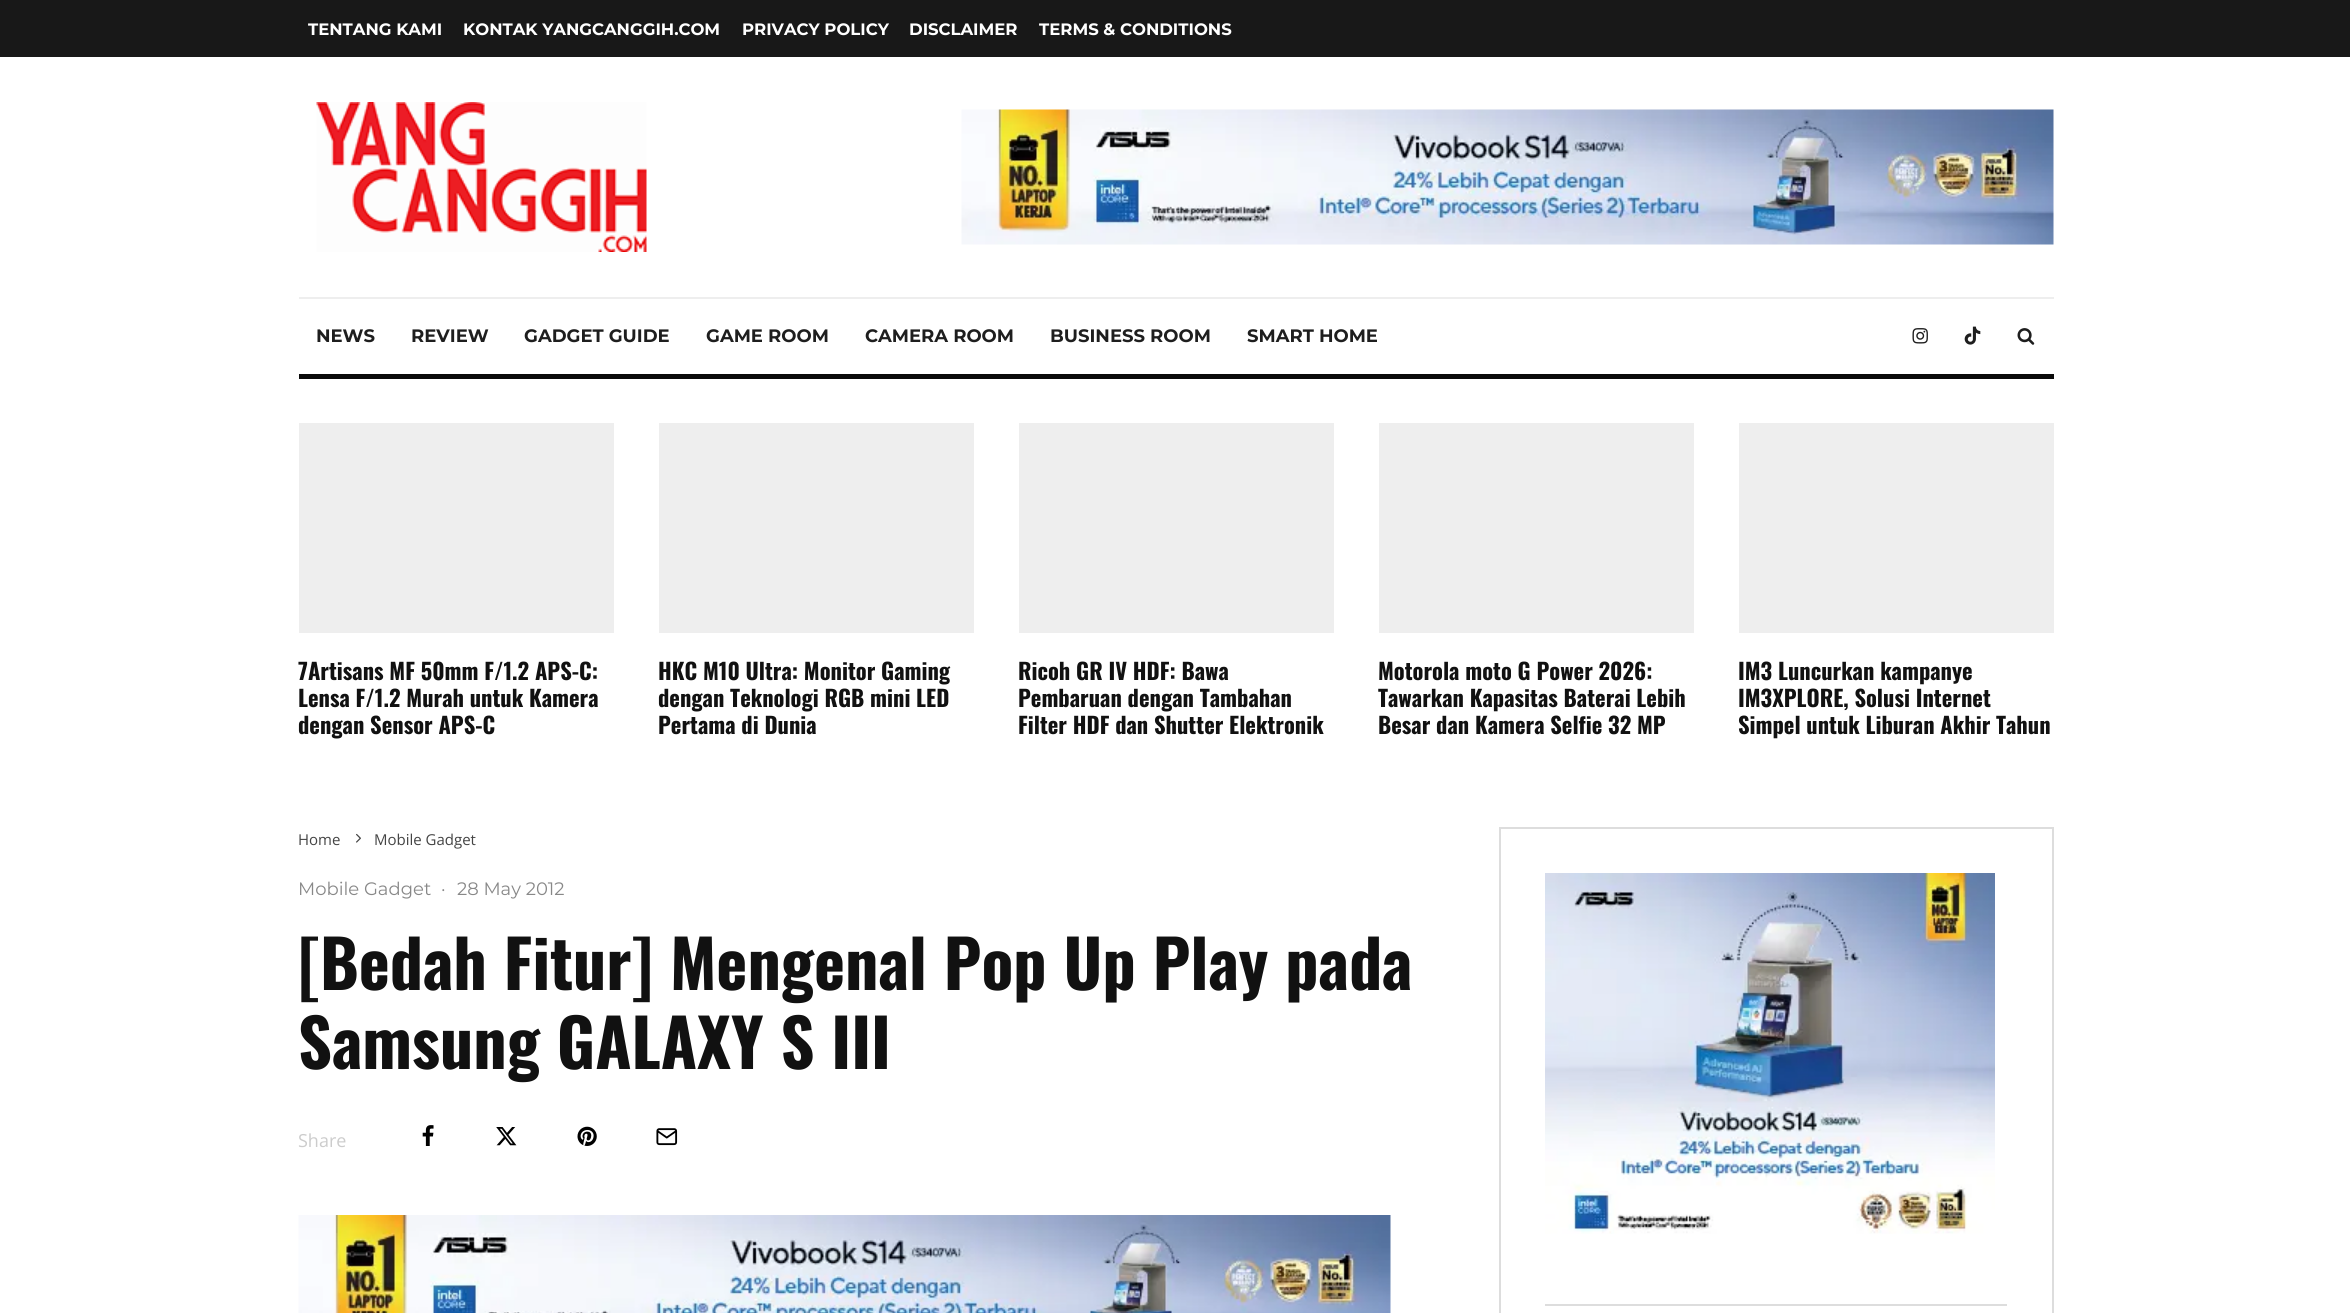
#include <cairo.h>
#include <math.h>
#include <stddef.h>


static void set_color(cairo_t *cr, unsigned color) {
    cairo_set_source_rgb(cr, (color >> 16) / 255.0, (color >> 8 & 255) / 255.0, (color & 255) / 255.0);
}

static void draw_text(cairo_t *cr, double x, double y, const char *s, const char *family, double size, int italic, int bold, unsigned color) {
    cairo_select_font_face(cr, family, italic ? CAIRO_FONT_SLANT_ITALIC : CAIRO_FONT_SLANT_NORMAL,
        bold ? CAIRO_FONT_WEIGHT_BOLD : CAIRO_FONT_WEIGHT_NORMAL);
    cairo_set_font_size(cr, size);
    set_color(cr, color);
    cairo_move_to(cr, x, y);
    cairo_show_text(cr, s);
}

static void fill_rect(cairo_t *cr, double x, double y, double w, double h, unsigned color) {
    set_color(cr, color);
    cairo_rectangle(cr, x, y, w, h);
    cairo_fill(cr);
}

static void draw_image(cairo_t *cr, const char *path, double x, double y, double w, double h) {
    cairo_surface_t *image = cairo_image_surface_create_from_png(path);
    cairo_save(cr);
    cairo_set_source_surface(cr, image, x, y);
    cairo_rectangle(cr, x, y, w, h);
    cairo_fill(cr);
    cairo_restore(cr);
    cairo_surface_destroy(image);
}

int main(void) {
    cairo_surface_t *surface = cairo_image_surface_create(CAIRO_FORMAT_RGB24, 2350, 1313);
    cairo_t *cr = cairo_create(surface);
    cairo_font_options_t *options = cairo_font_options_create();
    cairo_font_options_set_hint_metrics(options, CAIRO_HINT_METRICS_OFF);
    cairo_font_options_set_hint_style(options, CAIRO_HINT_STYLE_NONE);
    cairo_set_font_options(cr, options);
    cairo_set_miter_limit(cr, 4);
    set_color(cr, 0xFFFFFF);
    cairo_paint(cr);
    fill_rect(cr, 0, 0, 2350, 57, 0x181818);
    draw_text(cr, 308, 35, "TENTANG KAMI", "Montserrat", 16.5, 0, 1, 0xFFFFFF);
    draw_text(cr, 463, 35, "KONTAK YANGCANGGIH.COM", "Montserrat", 16.5, 0, 1, 0xFFFFFF);
    draw_text(cr, 742, 35, "PRIVACY POLICY", "Montserrat", 16.5, 0, 1, 0xFFFFFF);
    draw_text(cr, 909, 35, "DISCLAIMER", "Montserrat", 16.5, 0, 1, 0xFFFFFF);
    draw_text(cr, 1039, 35, "TERMS & CONDITIONS", "Montserrat", 16.5, 0, 1, 0xFFFFFF);
    draw_image(cr, "assets/img1.png", 316, 102, 331, 150);
    draw_image(cr, "assets/img2.png", 961, 109, 1093, 136);
    fill_rect(cr, 299, 297, 1755, 2, 0xEEEEEE);
    fill_rect(cr, 299, 374, 1755, 5, 0x0A0A0A);
    draw_text(cr, 316, 342, "NEWS", "Montserrat", 18, 0, 1, 0x1E1E1E);
    draw_text(cr, 411, 342, "REVIEW", "Montserrat", 18, 0, 1, 0x1E1E1E);
    draw_text(cr, 524, 342, "GADGET GUIDE", "Montserrat", 18, 0, 1, 0x1E1E1E);
    draw_text(cr, 706, 342, "GAME ROOM", "Montserrat", 18, 0, 1, 0x1E1E1E);
    draw_text(cr, 865, 342, "CAMERA ROOM", "Montserrat", 18, 0, 1, 0x1E1E1E);
    draw_text(cr, 1050, 342, "BUSINESS ROOM", "Montserrat", 18, 0, 1, 0x1E1E1E);
    draw_text(cr, 1247, 342, "SMART HOME", "Montserrat", 18, 0, 1, 0x1E1E1E);
    draw_image(cr, "assets/img3.png", 1912, 328, 16, 16);
    draw_image(cr, "assets/img4.png", 1964, 326, 17, 19);
    draw_image(cr, "assets/img5.png", 2017, 328, 18, 17);
    fill_rect(cr, 299, 423, 315, 210, 0xEEEEEE);
    draw_text(cr, 298, 680, "7Artisans MF 50mm F/1.2 APS-C:", "Oswald", 22.5, 0, 1, 0x111111);
    draw_text(cr, 298, 707, "Lensa F/1.2 Murah untuk Kamera", "Oswald", 22.5, 0, 1, 0x111111);
    draw_text(cr, 298, 734, "dengan Sensor APS-C", "Oswald", 22.5, 0, 1, 0x111111);
    fill_rect(cr, 659, 423, 315, 210, 0xEEEEEE);
    draw_text(cr, 658, 680, "HKC M10 Ultra: Monitor Gaming", "Oswald", 22.5, 0, 1, 0x111111);
    draw_text(cr, 658, 707, "dengan Teknologi RGB mini LED", "Oswald", 22.5, 0, 1, 0x111111);
    draw_text(cr, 658, 734, "Pertama di Dunia", "Oswald", 22.5, 0, 1, 0x111111);
    fill_rect(cr, 1019, 423, 315, 210, 0xEEEEEE);
    draw_text(cr, 1018, 680, "Ricoh GR IV HDF: Bawa", "Oswald", 22.5, 0, 1, 0x111111);
    draw_text(cr, 1018, 707, "Pembaruan dengan Tambahan", "Oswald", 22.5, 0, 1, 0x111111);
    draw_text(cr, 1018, 734, "Filter HDF dan Shutter Elektronik", "Oswald", 22.5, 0, 1, 0x111111);
    fill_rect(cr, 1379, 423, 315, 210, 0xEEEEEE);
    draw_text(cr, 1378, 680, "Motorola moto G Power 2026:", "Oswald", 22.5, 0, 1, 0x111111);
    draw_text(cr, 1378, 707, "Tawarkan Kapasitas Baterai Lebih", "Oswald", 22.5, 0, 1, 0x111111);
    draw_text(cr, 1378, 734, "Besar dan Kamera Selfie 32 MP", "Oswald", 22.5, 0, 1, 0x111111);
    fill_rect(cr, 1739, 423, 315, 210, 0xEEEEEE);
    draw_text(cr, 1738, 680, "IM3 Luncurkan kampanye", "Oswald", 22.5, 0, 1, 0x111111);
    draw_text(cr, 1738, 707, "IM3XPLORE, Solusi Internet", "Oswald", 22.5, 0, 1, 0x111111);
    draw_text(cr, 1738, 734, "Simpel untuk Liburan Akhir Tahun", "Oswald", 22.5, 0, 1, 0x111111);
    draw_text(cr, 298, 845, "Home", "Open Sans", 15, 0, 0, 0x444444);
    draw_image(cr, "assets/img6.png", 356, 833, 5, 10);
    draw_text(cr, 374, 845, "Mobile Gadget", "Open Sans", 15, 0, 0, 0x444444);
    draw_text(cr, 298, 895, "Mobile Gadget", "Montserrat", 18, 0, 0, 0x888888);
    draw_text(cr, 441, 895, "·", "Montserrat", 18, 0, 0, 0x888888);
    draw_text(cr, 457, 895, "28 May 2012", "Montserrat", 18, 0, 0, 0x888888);
    draw_text(cr, 298, 990, "[Bedah Fitur] Mengenal Pop Up Play pada", "Oswald", 66, 0, 1, 0x111111);
    draw_text(cr, 298, 1069, "Samsung GALAXY S III", "Oswald", 66, 0, 1, 0x111111);
    draw_text(cr, 298, 1147, "Share", "Open Sans", 18, 0, 0, 0xCCCCCC);
    draw_image(cr, "assets/img7.png", 422, 1125, 12, 21);
    draw_image(cr, "assets/img8.png", 496, 1127, 21, 19);
    draw_image(cr, "assets/img9.png", 577, 1126, 20, 20);
    draw_image(cr, "assets/img10.png", 656, 1128, 22, 18);
    draw_image(cr, "assets/img11.png", 298, 1215, 1093, 98);
    cairo_rectangle(cr, 1500, 828, 553, 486);
    set_color(cr, 0xDDDDDD);
    cairo_stroke(cr);
    fill_rect(cr, 1545, 1304, 462, 2, 0xDDDDDD);
    draw_image(cr, "assets/img12.png", 1545, 873, 450, 361);
    cairo_surface_write_to_png(surface, "output.png");
    cairo_font_options_destroy(options);
    cairo_destroy(cr);
    cairo_surface_destroy(surface);
    return 0;
}
